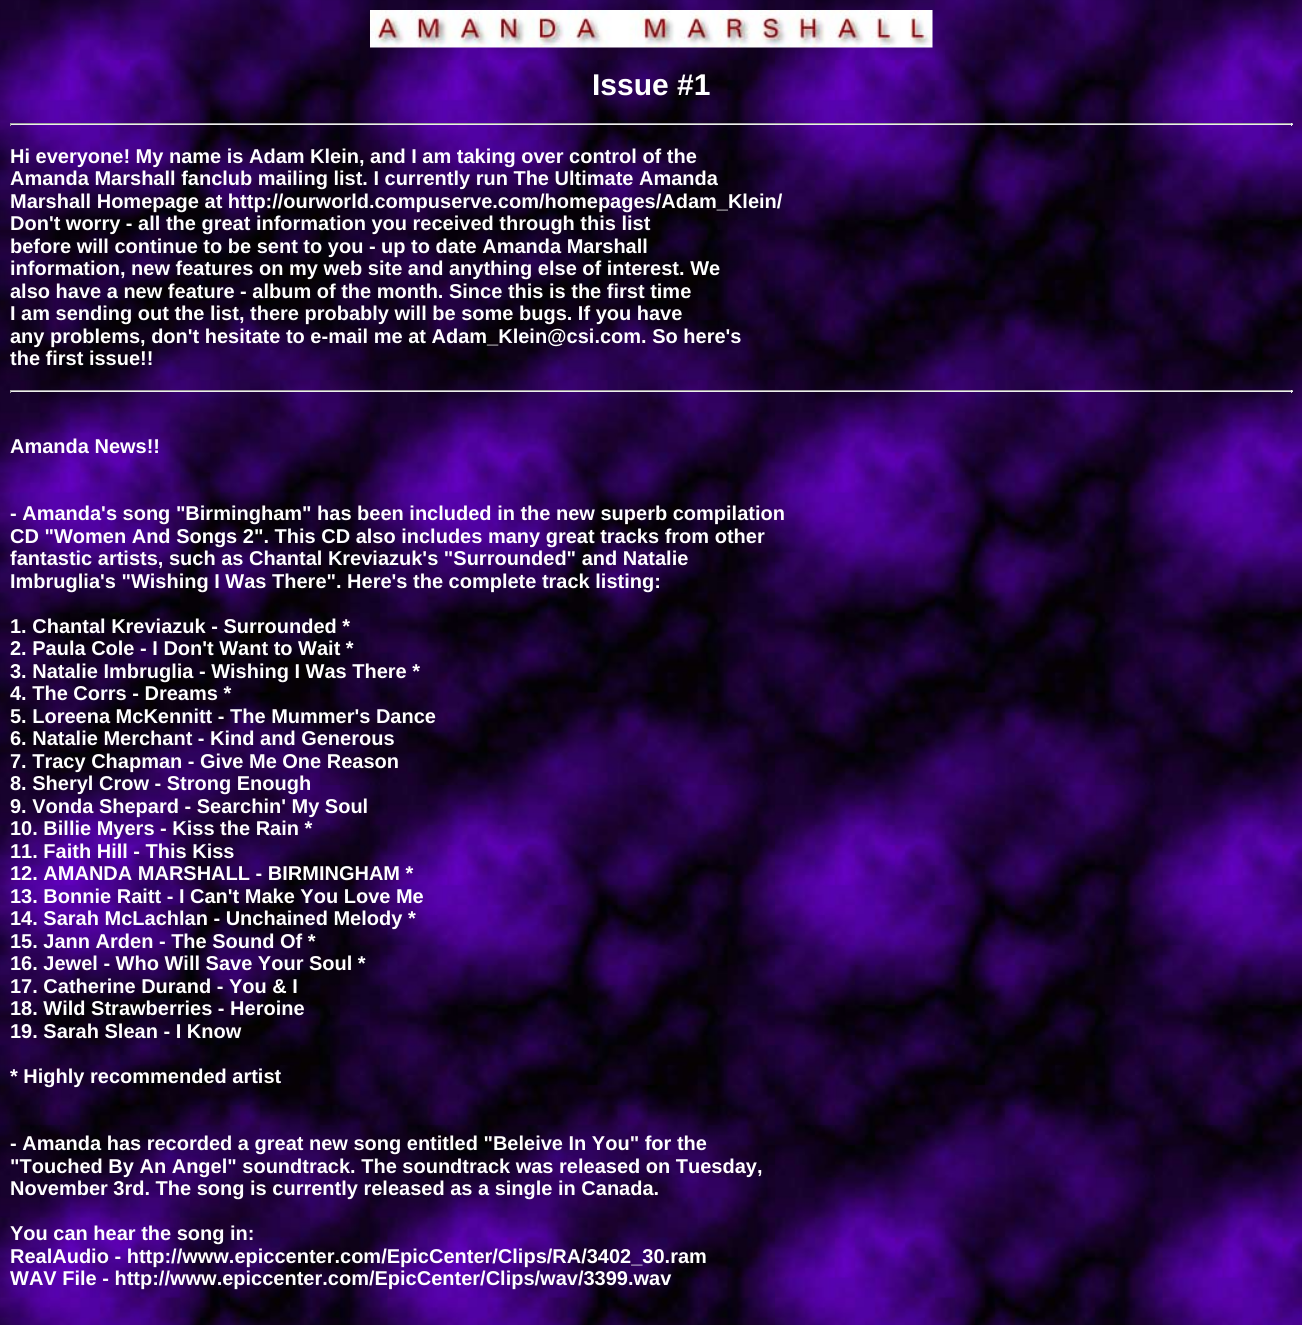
#include <cairo.h>
#include <math.h>
#include <stddef.h>


static void set_color(cairo_t *cr, unsigned color) {
    cairo_set_source_rgb(cr, (color >> 16) / 255.0, (color >> 8 & 255) / 255.0, (color & 255) / 255.0);
}

static void draw_text(cairo_t *cr, double x, double y, const char *s, const char *family, double size, int italic, int bold, unsigned color) {
    cairo_select_font_face(cr, family, italic ? CAIRO_FONT_SLANT_ITALIC : CAIRO_FONT_SLANT_NORMAL,
        bold ? CAIRO_FONT_WEIGHT_BOLD : CAIRO_FONT_WEIGHT_NORMAL);
    cairo_set_font_size(cr, size);
    set_color(cr, color);
    cairo_move_to(cr, x, y);
    cairo_show_text(cr, s);
}

static void fill_rect(cairo_t *cr, double x, double y, double w, double h, unsigned color) {
    set_color(cr, color);
    cairo_rectangle(cr, x, y, w, h);
    cairo_fill(cr);
}

static void draw_image(cairo_t *cr, const char *path, double x, double y, double w, double h) {
    cairo_surface_t *image = cairo_image_surface_create_from_png(path);
    cairo_save(cr);
    cairo_set_source_surface(cr, image, x, y);
    cairo_rectangle(cr, x, y, w, h);
    cairo_fill(cr);
    cairo_restore(cr);
    cairo_surface_destroy(image);
}

int main(void) {
    cairo_surface_t *surface = cairo_image_surface_create(CAIRO_FORMAT_RGB24, 1302, 1325);
    cairo_t *cr = cairo_create(surface);
    cairo_font_options_t *options = cairo_font_options_create();
    cairo_font_options_set_hint_metrics(options, CAIRO_HINT_METRICS_OFF);
    cairo_font_options_set_hint_style(options, CAIRO_HINT_STYLE_NONE);
    cairo_set_font_options(cr, options);
    cairo_set_miter_limit(cr, 4);
    set_color(cr, 0xFFFFFF);
    cairo_paint(cr);
    draw_image(cr, "assets/img1.png", 0, 0, 1302, 1325);
    draw_image(cr, "assets/img2.png", 370, 10, 563, 38);
    draw_text(cr, 592, 95, "Issue #1", "Liberation Sans", 30, 0, 1, 0xFFFFFF);
    fill_rect(cr, 10, 123, 1283, 1, 0x9F9F9F);
    fill_rect(cr, 1291, 123, 1, 3, 0xEEEEEE);
    fill_rect(cr, 10, 124, 1283, 1, 0xEEEEEE);
    fill_rect(cr, 10, 123, 1, 3, 0x9F9F9F);
    draw_text(cr, 10, 163, "Hi everyone! My name is Adam Klein, and I am taking over control of the", "Liberation Sans", 20, 0, 1, 0xFFFFFF);
    draw_text(cr, 10, 185, "Amanda Marshall fanclub mailing list. I currently run The Ultimate Amanda", "Liberation Sans", 20, 0, 1, 0xFFFFFF);
    draw_text(cr, 10, 208, "Marshall Homepage at http://ourworld.compuserve.com/homepages/Adam_Klein/", "Liberation Sans", 20, 0, 1, 0xFFFFFF);
    draw_text(cr, 10, 230, "Don't worry - all the great information you received through this list", "Liberation Sans", 20, 0, 1, 0xFFFFFF);
    draw_text(cr, 10, 253, "before will continue to be sent to you - up to date Amanda Marshall", "Liberation Sans", 20, 0, 1, 0xFFFFFF);
    draw_text(cr, 10, 275, "information, new features on my web site and anything else of interest. We", "Liberation Sans", 20, 0, 1, 0xFFFFFF);
    draw_text(cr, 10, 298, "also have a new feature - album of the month. Since this is the first time", "Liberation Sans", 20, 0, 1, 0xFFFFFF);
    draw_text(cr, 10, 320, "I am sending out the list, there probably will be some bugs. If you have", "Liberation Sans", 20, 0, 1, 0xFFFFFF);
    draw_text(cr, 10, 343, "any problems, don't hesitate to e-mail me at Adam_Klein@csi.com. So here's", "Liberation Sans", 20, 0, 1, 0xFFFFFF);
    draw_text(cr, 10, 365, "the first issue!!", "Liberation Sans", 20, 0, 1, 0xFFFFFF);
    fill_rect(cr, 10, 390, 1283, 1, 0x9F9F9F);
    fill_rect(cr, 1291, 390, 1, 3, 0xEEEEEE);
    fill_rect(cr, 10, 391, 1283, 1, 0xEEEEEE);
    fill_rect(cr, 10, 390, 1, 3, 0x9F9F9F);
    draw_text(cr, 10, 453, "Amanda News!!", "Liberation Sans", 20, 0, 1, 0xFFFFFF);
    draw_text(cr, 10, 520, "- Amanda's song \"Birmingham\" has been included in the new superb compilation", "Liberation Sans", 20, 0, 1, 0xFFFFFF);
    draw_text(cr, 10, 543, "CD \"Women And Songs 2\". This CD also includes many great tracks from other", "Liberation Sans", 20, 0, 1, 0xFFFFFF);
    draw_text(cr, 10, 565, "fantastic artists, such as Chantal Kreviazuk's \"Surrounded\" and Natalie", "Liberation Sans", 20, 0, 1, 0xFFFFFF);
    draw_text(cr, 10, 588, "Imbruglia's \"Wishing I Was There\". Here's the complete track listing:", "Liberation Sans", 20, 0, 1, 0xFFFFFF);
    draw_text(cr, 10, 633, "1. Chantal Kreviazuk - Surrounded *", "Liberation Sans", 20, 0, 1, 0xFFFFFF);
    draw_text(cr, 10, 655, "2. Paula Cole - I Don't Want to Wait *", "Liberation Sans", 20, 0, 1, 0xFFFFFF);
    draw_text(cr, 10, 678, "3. Natalie Imbruglia - Wishing I Was There *", "Liberation Sans", 20, 0, 1, 0xFFFFFF);
    draw_text(cr, 10, 700, "4. The Corrs - Dreams *", "Liberation Sans", 20, 0, 1, 0xFFFFFF);
    draw_text(cr, 10, 723, "5. Loreena McKennitt - The Mummer's Dance", "Liberation Sans", 20, 0, 1, 0xFFFFFF);
    draw_text(cr, 10, 745, "6. Natalie Merchant - Kind and Generous", "Liberation Sans", 20, 0, 1, 0xFFFFFF);
    draw_text(cr, 10, 768, "7. Tracy Chapman - Give Me One Reason", "Liberation Sans", 20, 0, 1, 0xFFFFFF);
    draw_text(cr, 10, 790, "8. Sheryl Crow - Strong Enough", "Liberation Sans", 20, 0, 1, 0xFFFFFF);
    draw_text(cr, 10, 813, "9. Vonda Shepard - Searchin' My Soul", "Liberation Sans", 20, 0, 1, 0xFFFFFF);
    draw_text(cr, 10, 835, "10. Billie Myers - Kiss the Rain *", "Liberation Sans", 20, 0, 1, 0xFFFFFF);
    draw_text(cr, 10, 858, "11. Faith Hill - This Kiss", "Liberation Sans", 20, 0, 1, 0xFFFFFF);
    draw_text(cr, 10, 880, "12. AMANDA MARSHALL - BIRMINGHAM *", "Liberation Sans", 20, 0, 1, 0xFFFFFF);
    draw_text(cr, 10, 903, "13. Bonnie Raitt - I Can't Make You Love Me", "Liberation Sans", 20, 0, 1, 0xFFFFFF);
    draw_text(cr, 10, 925, "14. Sarah McLachlan - Unchained Melody *", "Liberation Sans", 20, 0, 1, 0xFFFFFF);
    draw_text(cr, 10, 948, "15. Jann Arden - The Sound Of *", "Liberation Sans", 20, 0, 1, 0xFFFFFF);
    draw_text(cr, 10, 970, "16. Jewel - Who Will Save Your Soul *", "Liberation Sans", 20, 0, 1, 0xFFFFFF);
    draw_text(cr, 10, 993, "17. Catherine Durand - You & I", "Liberation Sans", 20, 0, 1, 0xFFFFFF);
    draw_text(cr, 10, 1015, "18. Wild Strawberries - Heroine", "Liberation Sans", 20, 0, 1, 0xFFFFFF);
    draw_text(cr, 10, 1038, "19. Sarah Slean - I Know", "Liberation Sans", 20, 0, 1, 0xFFFFFF);
    draw_text(cr, 10, 1083, "* Highly recommended artist", "Liberation Sans", 20, 0, 1, 0xFFFFFF);
    draw_text(cr, 10, 1150, "- Amanda has recorded a great new song entitled \"Beleive In You\" for the", "Liberation Sans", 20, 0, 1, 0xFFFFFF);
    draw_text(cr, 10, 1173, "\"Touched By An Angel\" soundtrack. The soundtrack was released on Tuesday,", "Liberation Sans", 20, 0, 1, 0xFFFFFF);
    draw_text(cr, 10, 1195, "November 3rd. The song is currently released as a single in Canada.", "Liberation Sans", 20, 0, 1, 0xFFFFFF);
    draw_text(cr, 10, 1240, "You can hear the song in:", "Liberation Sans", 20, 0, 1, 0xFFFFFF);
    draw_text(cr, 10, 1263, "RealAudio - http://www.epiccenter.com/EpicCenter/Clips/RA/3402_30.ram", "Liberation Sans", 20, 0, 1, 0xFFFFFF);
    draw_text(cr, 10, 1285, "WAV File - http://www.epiccenter.com/EpicCenter/Clips/wav/3399.wav", "Liberation Sans", 20, 0, 1, 0xFFFFFF);
    cairo_surface_write_to_png(surface, "output.png");
    cairo_font_options_destroy(options);
    cairo_destroy(cr);
    cairo_surface_destroy(surface);
    return 0;
}
